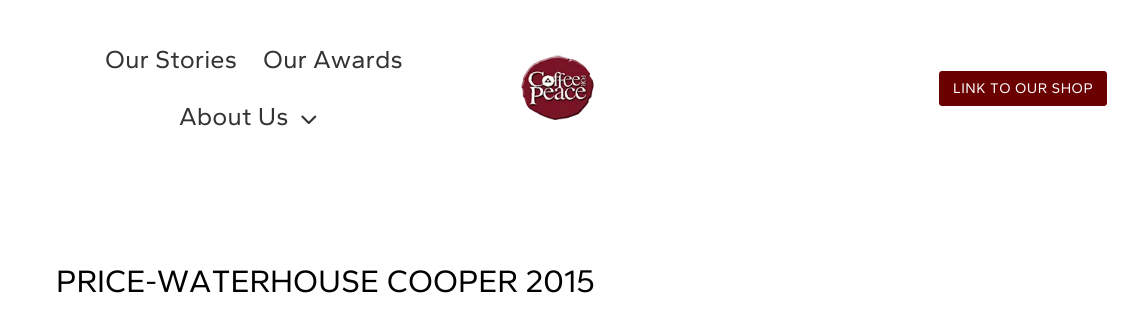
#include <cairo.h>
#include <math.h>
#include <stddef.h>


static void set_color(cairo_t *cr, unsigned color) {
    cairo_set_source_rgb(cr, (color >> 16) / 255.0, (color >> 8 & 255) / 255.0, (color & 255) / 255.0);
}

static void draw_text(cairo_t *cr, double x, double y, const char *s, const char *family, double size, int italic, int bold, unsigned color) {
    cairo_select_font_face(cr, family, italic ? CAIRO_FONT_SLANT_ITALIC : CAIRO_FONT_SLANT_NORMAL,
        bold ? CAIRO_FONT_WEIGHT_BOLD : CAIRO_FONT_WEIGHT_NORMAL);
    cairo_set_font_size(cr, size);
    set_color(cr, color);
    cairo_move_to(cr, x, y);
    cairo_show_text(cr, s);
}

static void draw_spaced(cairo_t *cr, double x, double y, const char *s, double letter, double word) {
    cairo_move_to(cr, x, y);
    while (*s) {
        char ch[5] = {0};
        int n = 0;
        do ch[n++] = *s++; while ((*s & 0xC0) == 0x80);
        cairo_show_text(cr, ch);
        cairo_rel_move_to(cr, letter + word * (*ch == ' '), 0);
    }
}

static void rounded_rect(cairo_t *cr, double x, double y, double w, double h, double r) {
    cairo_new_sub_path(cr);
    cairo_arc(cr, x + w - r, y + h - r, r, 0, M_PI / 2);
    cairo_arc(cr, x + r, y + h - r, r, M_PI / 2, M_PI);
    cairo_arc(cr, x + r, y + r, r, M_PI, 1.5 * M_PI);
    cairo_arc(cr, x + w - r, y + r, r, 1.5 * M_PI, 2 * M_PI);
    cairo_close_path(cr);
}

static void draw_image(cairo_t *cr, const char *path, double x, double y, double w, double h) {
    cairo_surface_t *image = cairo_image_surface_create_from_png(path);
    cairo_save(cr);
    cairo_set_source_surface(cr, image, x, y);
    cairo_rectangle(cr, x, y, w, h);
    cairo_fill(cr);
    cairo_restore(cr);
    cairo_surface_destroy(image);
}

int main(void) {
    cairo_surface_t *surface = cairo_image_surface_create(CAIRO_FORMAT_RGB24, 1131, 323);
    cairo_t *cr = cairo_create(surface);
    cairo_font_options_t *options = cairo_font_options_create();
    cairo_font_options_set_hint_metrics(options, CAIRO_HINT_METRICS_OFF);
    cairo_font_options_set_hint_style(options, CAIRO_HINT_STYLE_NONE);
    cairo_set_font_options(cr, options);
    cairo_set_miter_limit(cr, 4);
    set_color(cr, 0xFFFFFF);
    cairo_paint(cr);
    draw_text(cr, 105, 68, "Our Stories", "Gantari", 25.5, 0, 0, 0x333333);
    draw_text(cr, 263, 68, "Our Awards", "Gantari", 25.5, 0, 0, 0x333333);
    draw_text(cr, 179, 125, "About Us", "Gantari", 25.5, 0, 0, 0x333333);
    draw_image(cr, "assets/img1.png", 301, 115, 16, 9);
    draw_image(cr, "assets/img2.png", 521, 55, 73, 65);
    set_color(cr, 0x6A0000);
    rounded_rect(cr, 939, 71, 168, 35, 3);
    cairo_fill(cr);
    cairo_set_font_size(cr, 14.5);
    set_color(cr, 0xFCFCFC);
    draw_spaced(cr, 953, 93, "LINK TO OUR SHOP", 0.5, 0);
    draw_text(cr, 56, 292, "PRICE-WATERHOUSE COOPER 2015", "Gantari", 32, 0, 0, 0x000000);
    cairo_surface_write_to_png(surface, "output.png");
    cairo_font_options_destroy(options);
    cairo_destroy(cr);
    cairo_surface_destroy(surface);
    return 0;
}
